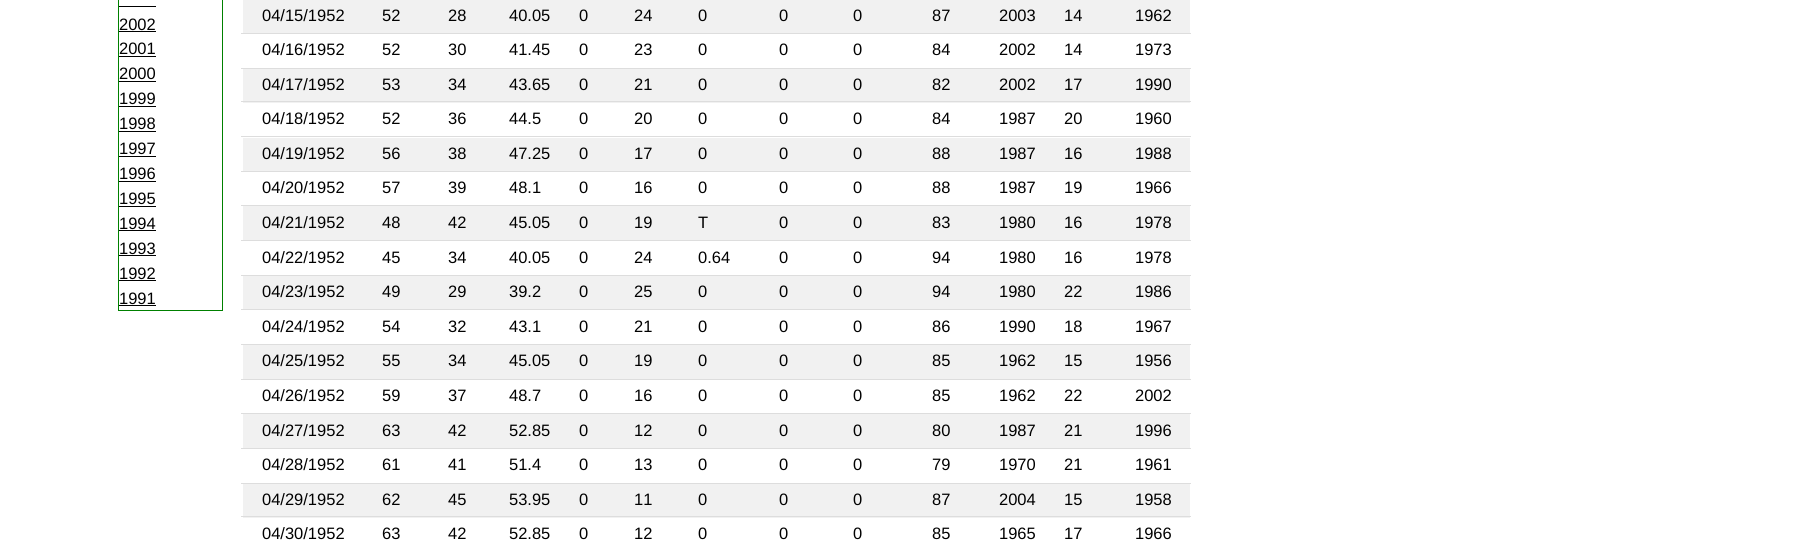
#include <cairo.h>
#include <math.h>
#include <stddef.h>


static void set_color(cairo_t *cr, unsigned color) {
    cairo_set_source_rgb(cr, (color >> 16) / 255.0, (color >> 8 & 255) / 255.0, (color & 255) / 255.0);
}

static void draw_text(cairo_t *cr, double x, double y, const char *s, const char *family, double size, int italic, int bold, unsigned color) {
    cairo_select_font_face(cr, family, italic ? CAIRO_FONT_SLANT_ITALIC : CAIRO_FONT_SLANT_NORMAL,
        bold ? CAIRO_FONT_WEIGHT_BOLD : CAIRO_FONT_WEIGHT_NORMAL);
    cairo_set_font_size(cr, size);
    set_color(cr, color);
    cairo_move_to(cr, x, y);
    cairo_show_text(cr, s);
}

static void fill_rect(cairo_t *cr, double x, double y, double w, double h, unsigned color) {
    set_color(cr, color);
    cairo_rectangle(cr, x, y, w, h);
    cairo_fill(cr);
}

int main(void) {
    cairo_surface_t *surface = cairo_image_surface_create(CAIRO_FORMAT_RGB24, 1814, 546);
    cairo_t *cr = cairo_create(surface);
    cairo_font_options_t *options = cairo_font_options_create();
    cairo_font_options_set_hint_metrics(options, CAIRO_HINT_METRICS_OFF);
    cairo_font_options_set_hint_style(options, CAIRO_HINT_STYLE_NONE);
    cairo_set_font_options(cr, options);
    cairo_set_miter_limit(cr, 4);
    set_color(cr, 0xFFFFFF);
    cairo_paint(cr);
    cairo_rectangle(cr, 118.5, -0.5, 104, 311);
    set_color(cr, 0x008000);
    cairo_set_line_width(cr, 1);
    cairo_stroke(cr);
    fill_rect(cr, 119, 6, 37, 1, 0x000000);
    draw_text(cr, 119, 30, "2002", "Liberation Sans", 16.5, 0, 0, 0x000000);
    fill_rect(cr, 119, 31, 37, 1, 0x000000);
    draw_text(cr, 119, 54, "2001", "Liberation Sans", 16.5, 0, 0, 0x000000);
    fill_rect(cr, 119, 56, 37, 1, 0x000000);
    draw_text(cr, 119, 79, "2000", "Liberation Sans", 16.5, 0, 0, 0x000000);
    fill_rect(cr, 119, 81, 37, 1, 0x000000);
    draw_text(cr, 119, 104, "1999", "Liberation Sans", 16.5, 0, 0, 0x000000);
    fill_rect(cr, 119, 106, 37, 1, 0x000000);
    draw_text(cr, 119, 129, "1998", "Liberation Sans", 16.5, 0, 0, 0x000000);
    fill_rect(cr, 119, 131, 37, 1, 0x000000);
    draw_text(cr, 119, 154, "1997", "Liberation Sans", 16.5, 0, 0, 0x000000);
    fill_rect(cr, 119, 156, 37, 1, 0x000000);
    draw_text(cr, 119, 179, "1996", "Liberation Sans", 16.5, 0, 0, 0x000000);
    fill_rect(cr, 119, 181, 37, 1, 0x000000);
    draw_text(cr, 119, 204, "1995", "Liberation Sans", 16.5, 0, 0, 0x000000);
    fill_rect(cr, 119, 206, 37, 1, 0x000000);
    draw_text(cr, 119, 229, "1994", "Liberation Sans", 16.5, 0, 0, 0x000000);
    fill_rect(cr, 119, 230, 37, 1, 0x000000);
    draw_text(cr, 119, 254, "1993", "Liberation Sans", 16.5, 0, 0, 0x000000);
    fill_rect(cr, 119, 255, 37, 1, 0x000000);
    draw_text(cr, 119, 279, "1992", "Liberation Sans", 16.5, 0, 0, 0x000000);
    fill_rect(cr, 119, 280, 37, 1, 0x000000);
    draw_text(cr, 119, 304, "1991", "Liberation Sans", 16.5, 0, 0, 0x000000);
    fill_rect(cr, 119, 305, 37, 1, 0x000000);
    fill_rect(cr, 243, 0, 947, 33, 0xF1F1F1);
    fill_rect(cr, 241, 33, 950, 1, 0xDDDDDD);
    draw_text(cr, 262, 21, "04/15/1952", "Liberation Sans", 16.5, 0, 0, 0x000000);
    draw_text(cr, 382, 21, "52", "Liberation Sans", 16.5, 0, 0, 0x000000);
    draw_text(cr, 448, 21, "28", "Liberation Sans", 16.5, 0, 0, 0x000000);
    draw_text(cr, 509, 21, "40.05", "Liberation Sans", 16.5, 0, 0, 0x000000);
    draw_text(cr, 579, 21, "0", "Liberation Sans", 16.5, 0, 0, 0x000000);
    draw_text(cr, 634, 21, "24", "Liberation Sans", 16.5, 0, 0, 0x000000);
    draw_text(cr, 698, 21, "0", "Liberation Sans", 16.5, 0, 0, 0x000000);
    draw_text(cr, 779, 21, "0", "Liberation Sans", 16.5, 0, 0, 0x000000);
    draw_text(cr, 853, 21, "0", "Liberation Sans", 16.5, 0, 0, 0x000000);
    draw_text(cr, 932, 21, "87", "Liberation Sans", 16.5, 0, 0, 0x000000);
    draw_text(cr, 999, 21, "2003", "Liberation Sans", 16.5, 0, 0, 0x000000);
    draw_text(cr, 1064, 21, "14", "Liberation Sans", 16.5, 0, 0, 0x000000);
    draw_text(cr, 1135, 21, "1962", "Liberation Sans", 16.5, 0, 0, 0x000000);
    fill_rect(cr, 241, 68, 950, 1, 0xDDDDDD);
    draw_text(cr, 262, 55, "04/16/1952", "Liberation Sans", 16.5, 0, 0, 0x000000);
    draw_text(cr, 382, 55, "52", "Liberation Sans", 16.5, 0, 0, 0x000000);
    draw_text(cr, 448, 55, "30", "Liberation Sans", 16.5, 0, 0, 0x000000);
    draw_text(cr, 509, 55, "41.45", "Liberation Sans", 16.5, 0, 0, 0x000000);
    draw_text(cr, 579, 55, "0", "Liberation Sans", 16.5, 0, 0, 0x000000);
    draw_text(cr, 634, 55, "23", "Liberation Sans", 16.5, 0, 0, 0x000000);
    draw_text(cr, 698, 55, "0", "Liberation Sans", 16.5, 0, 0, 0x000000);
    draw_text(cr, 779, 55, "0", "Liberation Sans", 16.5, 0, 0, 0x000000);
    draw_text(cr, 853, 55, "0", "Liberation Sans", 16.5, 0, 0, 0x000000);
    draw_text(cr, 932, 55, "84", "Liberation Sans", 16.5, 0, 0, 0x000000);
    draw_text(cr, 999, 55, "2002", "Liberation Sans", 16.5, 0, 0, 0x000000);
    draw_text(cr, 1064, 55, "14", "Liberation Sans", 16.5, 0, 0, 0x000000);
    draw_text(cr, 1135, 55, "1973", "Liberation Sans", 16.5, 0, 0, 0x000000);
    fill_rect(cr, 243, 69, 947, 34, 0xF1F1F1);
    fill_rect(cr, 241, 101, 950, 1, 0xDDDDDD);
    draw_text(cr, 262, 90, "04/17/1952", "Liberation Sans", 16.5, 0, 0, 0x000000);
    draw_text(cr, 382, 90, "53", "Liberation Sans", 16.5, 0, 0, 0x000000);
    draw_text(cr, 448, 90, "34", "Liberation Sans", 16.5, 0, 0, 0x000000);
    draw_text(cr, 509, 90, "43.65", "Liberation Sans", 16.5, 0, 0, 0x000000);
    draw_text(cr, 579, 90, "0", "Liberation Sans", 16.5, 0, 0, 0x000000);
    draw_text(cr, 634, 90, "21", "Liberation Sans", 16.5, 0, 0, 0x000000);
    draw_text(cr, 698, 90, "0", "Liberation Sans", 16.5, 0, 0, 0x000000);
    draw_text(cr, 779, 90, "0", "Liberation Sans", 16.5, 0, 0, 0x000000);
    draw_text(cr, 853, 90, "0", "Liberation Sans", 16.5, 0, 0, 0x000000);
    draw_text(cr, 932, 90, "82", "Liberation Sans", 16.5, 0, 0, 0x000000);
    draw_text(cr, 999, 90, "2002", "Liberation Sans", 16.5, 0, 0, 0x000000);
    draw_text(cr, 1064, 90, "17", "Liberation Sans", 16.5, 0, 0, 0x000000);
    draw_text(cr, 1135, 90, "1990", "Liberation Sans", 16.5, 0, 0, 0x000000);
    fill_rect(cr, 241, 136, 950, 1, 0xDDDDDD);
    draw_text(cr, 262, 124, "04/18/1952", "Liberation Sans", 16.5, 0, 0, 0x000000);
    draw_text(cr, 382, 124, "52", "Liberation Sans", 16.5, 0, 0, 0x000000);
    draw_text(cr, 448, 124, "36", "Liberation Sans", 16.5, 0, 0, 0x000000);
    draw_text(cr, 509, 124, "44.5", "Liberation Sans", 16.5, 0, 0, 0x000000);
    draw_text(cr, 579, 124, "0", "Liberation Sans", 16.5, 0, 0, 0x000000);
    draw_text(cr, 634, 124, "20", "Liberation Sans", 16.5, 0, 0, 0x000000);
    draw_text(cr, 698, 124, "0", "Liberation Sans", 16.5, 0, 0, 0x000000);
    draw_text(cr, 779, 124, "0", "Liberation Sans", 16.5, 0, 0, 0x000000);
    draw_text(cr, 853, 124, "0", "Liberation Sans", 16.5, 0, 0, 0x000000);
    draw_text(cr, 932, 124, "84", "Liberation Sans", 16.5, 0, 0, 0x000000);
    draw_text(cr, 999, 124, "1987", "Liberation Sans", 16.5, 0, 0, 0x000000);
    draw_text(cr, 1064, 124, "20", "Liberation Sans", 16.5, 0, 0, 0x000000);
    draw_text(cr, 1135, 124, "1960", "Liberation Sans", 16.5, 0, 0, 0x000000);
    fill_rect(cr, 243, 138, 947, 33, 0xF1F1F1);
    fill_rect(cr, 241, 171, 950, 1, 0xDDDDDD);
    draw_text(cr, 262, 159, "04/19/1952", "Liberation Sans", 16.5, 0, 0, 0x000000);
    draw_text(cr, 382, 159, "56", "Liberation Sans", 16.5, 0, 0, 0x000000);
    draw_text(cr, 448, 159, "38", "Liberation Sans", 16.5, 0, 0, 0x000000);
    draw_text(cr, 509, 159, "47.25", "Liberation Sans", 16.5, 0, 0, 0x000000);
    draw_text(cr, 579, 159, "0", "Liberation Sans", 16.5, 0, 0, 0x000000);
    draw_text(cr, 634, 159, "17", "Liberation Sans", 16.5, 0, 0, 0x000000);
    draw_text(cr, 698, 159, "0", "Liberation Sans", 16.5, 0, 0, 0x000000);
    draw_text(cr, 779, 159, "0", "Liberation Sans", 16.5, 0, 0, 0x000000);
    draw_text(cr, 853, 159, "0", "Liberation Sans", 16.5, 0, 0, 0x000000);
    draw_text(cr, 932, 159, "88", "Liberation Sans", 16.5, 0, 0, 0x000000);
    draw_text(cr, 999, 159, "1987", "Liberation Sans", 16.5, 0, 0, 0x000000);
    draw_text(cr, 1064, 159, "16", "Liberation Sans", 16.5, 0, 0, 0x000000);
    draw_text(cr, 1135, 159, "1988", "Liberation Sans", 16.5, 0, 0, 0x000000);
    fill_rect(cr, 241, 205, 950, 1, 0xDDDDDD);
    draw_text(cr, 262, 193, "04/20/1952", "Liberation Sans", 16.5, 0, 0, 0x000000);
    draw_text(cr, 382, 193, "57", "Liberation Sans", 16.5, 0, 0, 0x000000);
    draw_text(cr, 448, 193, "39", "Liberation Sans", 16.5, 0, 0, 0x000000);
    draw_text(cr, 509, 193, "48.1", "Liberation Sans", 16.5, 0, 0, 0x000000);
    draw_text(cr, 579, 193, "0", "Liberation Sans", 16.5, 0, 0, 0x000000);
    draw_text(cr, 634, 193, "16", "Liberation Sans", 16.5, 0, 0, 0x000000);
    draw_text(cr, 698, 193, "0", "Liberation Sans", 16.5, 0, 0, 0x000000);
    draw_text(cr, 779, 193, "0", "Liberation Sans", 16.5, 0, 0, 0x000000);
    draw_text(cr, 853, 193, "0", "Liberation Sans", 16.5, 0, 0, 0x000000);
    draw_text(cr, 932, 193, "88", "Liberation Sans", 16.5, 0, 0, 0x000000);
    draw_text(cr, 999, 193, "1987", "Liberation Sans", 16.5, 0, 0, 0x000000);
    draw_text(cr, 1064, 193, "19", "Liberation Sans", 16.5, 0, 0, 0x000000);
    draw_text(cr, 1135, 193, "1966", "Liberation Sans", 16.5, 0, 0, 0x000000);
    fill_rect(cr, 243, 206, 947, 34, 0xF1F1F1);
    fill_rect(cr, 241, 240, 950, 1, 0xDDDDDD);
    draw_text(cr, 262, 228, "04/21/1952", "Liberation Sans", 16.5, 0, 0, 0x000000);
    draw_text(cr, 382, 228, "48", "Liberation Sans", 16.5, 0, 0, 0x000000);
    draw_text(cr, 448, 228, "42", "Liberation Sans", 16.5, 0, 0, 0x000000);
    draw_text(cr, 509, 228, "45.05", "Liberation Sans", 16.5, 0, 0, 0x000000);
    draw_text(cr, 579, 228, "0", "Liberation Sans", 16.5, 0, 0, 0x000000);
    draw_text(cr, 634, 228, "19", "Liberation Sans", 16.5, 0, 0, 0x000000);
    draw_text(cr, 698, 228, "T", "Liberation Sans", 16.5, 0, 0, 0x000000);
    draw_text(cr, 779, 228, "0", "Liberation Sans", 16.5, 0, 0, 0x000000);
    draw_text(cr, 853, 228, "0", "Liberation Sans", 16.5, 0, 0, 0x000000);
    draw_text(cr, 932, 228, "83", "Liberation Sans", 16.5, 0, 0, 0x000000);
    draw_text(cr, 999, 228, "1980", "Liberation Sans", 16.5, 0, 0, 0x000000);
    draw_text(cr, 1064, 228, "16", "Liberation Sans", 16.5, 0, 0, 0x000000);
    draw_text(cr, 1135, 228, "1978", "Liberation Sans", 16.5, 0, 0, 0x000000);
    fill_rect(cr, 241, 275, 950, 1, 0xDDDDDD);
    draw_text(cr, 262, 263, "04/22/1952", "Liberation Sans", 16.5, 0, 0, 0x000000);
    draw_text(cr, 382, 263, "45", "Liberation Sans", 16.5, 0, 0, 0x000000);
    draw_text(cr, 448, 263, "34", "Liberation Sans", 16.5, 0, 0, 0x000000);
    draw_text(cr, 509, 263, "40.05", "Liberation Sans", 16.5, 0, 0, 0x000000);
    draw_text(cr, 579, 263, "0", "Liberation Sans", 16.5, 0, 0, 0x000000);
    draw_text(cr, 634, 263, "24", "Liberation Sans", 16.5, 0, 0, 0x000000);
    draw_text(cr, 698, 263, "0.64", "Liberation Sans", 16.5, 0, 0, 0x000000);
    draw_text(cr, 779, 263, "0", "Liberation Sans", 16.5, 0, 0, 0x000000);
    draw_text(cr, 853, 263, "0", "Liberation Sans", 16.5, 0, 0, 0x000000);
    draw_text(cr, 932, 263, "94", "Liberation Sans", 16.5, 0, 0, 0x000000);
    draw_text(cr, 999, 263, "1980", "Liberation Sans", 16.5, 0, 0, 0x000000);
    draw_text(cr, 1064, 263, "16", "Liberation Sans", 16.5, 0, 0, 0x000000);
    draw_text(cr, 1135, 263, "1978", "Liberation Sans", 16.5, 0, 0, 0x000000);
    fill_rect(cr, 243, 276, 947, 33, 0xF1F1F1);
    fill_rect(cr, 241, 309, 950, 1, 0xDDDDDD);
    draw_text(cr, 262, 297, "04/23/1952", "Liberation Sans", 16.5, 0, 0, 0x000000);
    draw_text(cr, 382, 297, "49", "Liberation Sans", 16.5, 0, 0, 0x000000);
    draw_text(cr, 448, 297, "29", "Liberation Sans", 16.5, 0, 0, 0x000000);
    draw_text(cr, 509, 297, "39.2", "Liberation Sans", 16.5, 0, 0, 0x000000);
    draw_text(cr, 579, 297, "0", "Liberation Sans", 16.5, 0, 0, 0x000000);
    draw_text(cr, 634, 297, "25", "Liberation Sans", 16.5, 0, 0, 0x000000);
    draw_text(cr, 698, 297, "0", "Liberation Sans", 16.5, 0, 0, 0x000000);
    draw_text(cr, 779, 297, "0", "Liberation Sans", 16.5, 0, 0, 0x000000);
    draw_text(cr, 853, 297, "0", "Liberation Sans", 16.5, 0, 0, 0x000000);
    draw_text(cr, 932, 297, "94", "Liberation Sans", 16.5, 0, 0, 0x000000);
    draw_text(cr, 999, 297, "1980", "Liberation Sans", 16.5, 0, 0, 0x000000);
    draw_text(cr, 1064, 297, "22", "Liberation Sans", 16.5, 0, 0, 0x000000);
    draw_text(cr, 1135, 297, "1986", "Liberation Sans", 16.5, 0, 0, 0x000000);
    fill_rect(cr, 241, 344, 950, 1, 0xDDDDDD);
    draw_text(cr, 262, 332, "04/24/1952", "Liberation Sans", 16.5, 0, 0, 0x000000);
    draw_text(cr, 382, 332, "54", "Liberation Sans", 16.5, 0, 0, 0x000000);
    draw_text(cr, 448, 332, "32", "Liberation Sans", 16.5, 0, 0, 0x000000);
    draw_text(cr, 509, 332, "43.1", "Liberation Sans", 16.5, 0, 0, 0x000000);
    draw_text(cr, 579, 332, "0", "Liberation Sans", 16.5, 0, 0, 0x000000);
    draw_text(cr, 634, 332, "21", "Liberation Sans", 16.5, 0, 0, 0x000000);
    draw_text(cr, 698, 332, "0", "Liberation Sans", 16.5, 0, 0, 0x000000);
    draw_text(cr, 779, 332, "0", "Liberation Sans", 16.5, 0, 0, 0x000000);
    draw_text(cr, 853, 332, "0", "Liberation Sans", 16.5, 0, 0, 0x000000);
    draw_text(cr, 932, 332, "86", "Liberation Sans", 16.5, 0, 0, 0x000000);
    draw_text(cr, 999, 332, "1990", "Liberation Sans", 16.5, 0, 0, 0x000000);
    draw_text(cr, 1064, 332, "18", "Liberation Sans", 16.5, 0, 0, 0x000000);
    draw_text(cr, 1135, 332, "1967", "Liberation Sans", 16.5, 0, 0, 0x000000);
    fill_rect(cr, 243, 345, 947, 34, 0xF1F1F1);
    fill_rect(cr, 241, 379, 950, 1, 0xDDDDDD);
    draw_text(cr, 262, 366, "04/25/1952", "Liberation Sans", 16.5, 0, 0, 0x000000);
    draw_text(cr, 382, 366, "55", "Liberation Sans", 16.5, 0, 0, 0x000000);
    draw_text(cr, 448, 366, "34", "Liberation Sans", 16.5, 0, 0, 0x000000);
    draw_text(cr, 509, 366, "45.05", "Liberation Sans", 16.5, 0, 0, 0x000000);
    draw_text(cr, 579, 366, "0", "Liberation Sans", 16.5, 0, 0, 0x000000);
    draw_text(cr, 634, 366, "19", "Liberation Sans", 16.5, 0, 0, 0x000000);
    draw_text(cr, 698, 366, "0", "Liberation Sans", 16.5, 0, 0, 0x000000);
    draw_text(cr, 779, 366, "0", "Liberation Sans", 16.5, 0, 0, 0x000000);
    draw_text(cr, 853, 366, "0", "Liberation Sans", 16.5, 0, 0, 0x000000);
    draw_text(cr, 932, 366, "85", "Liberation Sans", 16.5, 0, 0, 0x000000);
    draw_text(cr, 999, 366, "1962", "Liberation Sans", 16.5, 0, 0, 0x000000);
    draw_text(cr, 1064, 366, "15", "Liberation Sans", 16.5, 0, 0, 0x000000);
    draw_text(cr, 1135, 366, "1956", "Liberation Sans", 16.5, 0, 0, 0x000000);
    fill_rect(cr, 241, 413, 950, 1, 0xDDDDDD);
    draw_text(cr, 262, 401, "04/26/1952", "Liberation Sans", 16.5, 0, 0, 0x000000);
    draw_text(cr, 382, 401, "59", "Liberation Sans", 16.5, 0, 0, 0x000000);
    draw_text(cr, 448, 401, "37", "Liberation Sans", 16.5, 0, 0, 0x000000);
    draw_text(cr, 509, 401, "48.7", "Liberation Sans", 16.5, 0, 0, 0x000000);
    draw_text(cr, 579, 401, "0", "Liberation Sans", 16.5, 0, 0, 0x000000);
    draw_text(cr, 634, 401, "16", "Liberation Sans", 16.5, 0, 0, 0x000000);
    draw_text(cr, 698, 401, "0", "Liberation Sans", 16.5, 0, 0, 0x000000);
    draw_text(cr, 779, 401, "0", "Liberation Sans", 16.5, 0, 0, 0x000000);
    draw_text(cr, 853, 401, "0", "Liberation Sans", 16.5, 0, 0, 0x000000);
    draw_text(cr, 932, 401, "85", "Liberation Sans", 16.5, 0, 0, 0x000000);
    draw_text(cr, 999, 401, "1962", "Liberation Sans", 16.5, 0, 0, 0x000000);
    draw_text(cr, 1064, 401, "22", "Liberation Sans", 16.5, 0, 0, 0x000000);
    draw_text(cr, 1135, 401, "2002", "Liberation Sans", 16.5, 0, 0, 0x000000);
    fill_rect(cr, 243, 414, 947, 34, 0xF1F1F1);
    fill_rect(cr, 241, 448, 950, 1, 0xDDDDDD);
    draw_text(cr, 262, 436, "04/27/1952", "Liberation Sans", 16.5, 0, 0, 0x000000);
    draw_text(cr, 382, 436, "63", "Liberation Sans", 16.5, 0, 0, 0x000000);
    draw_text(cr, 448, 436, "42", "Liberation Sans", 16.5, 0, 0, 0x000000);
    draw_text(cr, 509, 436, "52.85", "Liberation Sans", 16.5, 0, 0, 0x000000);
    draw_text(cr, 579, 436, "0", "Liberation Sans", 16.5, 0, 0, 0x000000);
    draw_text(cr, 634, 436, "12", "Liberation Sans", 16.5, 0, 0, 0x000000);
    draw_text(cr, 698, 436, "0", "Liberation Sans", 16.5, 0, 0, 0x000000);
    draw_text(cr, 779, 436, "0", "Liberation Sans", 16.5, 0, 0, 0x000000);
    draw_text(cr, 853, 436, "0", "Liberation Sans", 16.5, 0, 0, 0x000000);
    draw_text(cr, 932, 436, "80", "Liberation Sans", 16.5, 0, 0, 0x000000);
    draw_text(cr, 999, 436, "1987", "Liberation Sans", 16.5, 0, 0, 0x000000);
    draw_text(cr, 1064, 436, "21", "Liberation Sans", 16.5, 0, 0, 0x000000);
    draw_text(cr, 1135, 436, "1996", "Liberation Sans", 16.5, 0, 0, 0x000000);
    fill_rect(cr, 241, 483, 950, 1, 0xDDDDDD);
    draw_text(cr, 262, 470, "04/28/1952", "Liberation Sans", 16.5, 0, 0, 0x000000);
    draw_text(cr, 382, 470, "61", "Liberation Sans", 16.5, 0, 0, 0x000000);
    draw_text(cr, 448, 470, "41", "Liberation Sans", 16.5, 0, 0, 0x000000);
    draw_text(cr, 509, 470, "51.4", "Liberation Sans", 16.5, 0, 0, 0x000000);
    draw_text(cr, 579, 470, "0", "Liberation Sans", 16.5, 0, 0, 0x000000);
    draw_text(cr, 634, 470, "13", "Liberation Sans", 16.5, 0, 0, 0x000000);
    draw_text(cr, 698, 470, "0", "Liberation Sans", 16.5, 0, 0, 0x000000);
    draw_text(cr, 779, 470, "0", "Liberation Sans", 16.5, 0, 0, 0x000000);
    draw_text(cr, 853, 470, "0", "Liberation Sans", 16.5, 0, 0, 0x000000);
    draw_text(cr, 932, 470, "79", "Liberation Sans", 16.5, 0, 0, 0x000000);
    draw_text(cr, 999, 470, "1970", "Liberation Sans", 16.5, 0, 0, 0x000000);
    draw_text(cr, 1064, 470, "21", "Liberation Sans", 16.5, 0, 0, 0x000000);
    draw_text(cr, 1135, 470, "1961", "Liberation Sans", 16.5, 0, 0, 0x000000);
    fill_rect(cr, 243, 484, 947, 34, 0xF1F1F1);
    fill_rect(cr, 241, 516, 950, 1, 0xDDDDDD);
    draw_text(cr, 262, 505, "04/29/1952", "Liberation Sans", 16.5, 0, 0, 0x000000);
    draw_text(cr, 382, 505, "62", "Liberation Sans", 16.5, 0, 0, 0x000000);
    draw_text(cr, 448, 505, "45", "Liberation Sans", 16.5, 0, 0, 0x000000);
    draw_text(cr, 509, 505, "53.95", "Liberation Sans", 16.5, 0, 0, 0x000000);
    draw_text(cr, 579, 505, "0", "Liberation Sans", 16.5, 0, 0, 0x000000);
    draw_text(cr, 634, 505, "11", "Liberation Sans", 16.5, 0, 0, 0x000000);
    draw_text(cr, 698, 505, "0", "Liberation Sans", 16.5, 0, 0, 0x000000);
    draw_text(cr, 779, 505, "0", "Liberation Sans", 16.5, 0, 0, 0x000000);
    draw_text(cr, 853, 505, "0", "Liberation Sans", 16.5, 0, 0, 0x000000);
    draw_text(cr, 932, 505, "87", "Liberation Sans", 16.5, 0, 0, 0x000000);
    draw_text(cr, 999, 505, "2004", "Liberation Sans", 16.5, 0, 0, 0x000000);
    draw_text(cr, 1064, 505, "15", "Liberation Sans", 16.5, 0, 0, 0x000000);
    draw_text(cr, 1135, 505, "1958", "Liberation Sans", 16.5, 0, 0, 0x000000);
    draw_text(cr, 262, 539, "04/30/1952", "Liberation Sans", 16.5, 0, 0, 0x000000);
    draw_text(cr, 382, 539, "63", "Liberation Sans", 16.5, 0, 0, 0x000000);
    draw_text(cr, 448, 539, "42", "Liberation Sans", 16.5, 0, 0, 0x000000);
    draw_text(cr, 509, 539, "52.85", "Liberation Sans", 16.5, 0, 0, 0x000000);
    draw_text(cr, 579, 539, "0", "Liberation Sans", 16.5, 0, 0, 0x000000);
    draw_text(cr, 634, 539, "12", "Liberation Sans", 16.5, 0, 0, 0x000000);
    draw_text(cr, 698, 539, "0", "Liberation Sans", 16.5, 0, 0, 0x000000);
    draw_text(cr, 779, 539, "0", "Liberation Sans", 16.5, 0, 0, 0x000000);
    draw_text(cr, 853, 539, "0", "Liberation Sans", 16.5, 0, 0, 0x000000);
    draw_text(cr, 932, 539, "85", "Liberation Sans", 16.5, 0, 0, 0x000000);
    draw_text(cr, 999, 539, "1965", "Liberation Sans", 16.5, 0, 0, 0x000000);
    draw_text(cr, 1064, 539, "17", "Liberation Sans", 16.5, 0, 0, 0x000000);
    draw_text(cr, 1135, 539, "1966", "Liberation Sans", 16.5, 0, 0, 0x000000);
    cairo_surface_write_to_png(surface, "output.png");
    cairo_font_options_destroy(options);
    cairo_destroy(cr);
    cairo_surface_destroy(surface);
    return 0;
}
